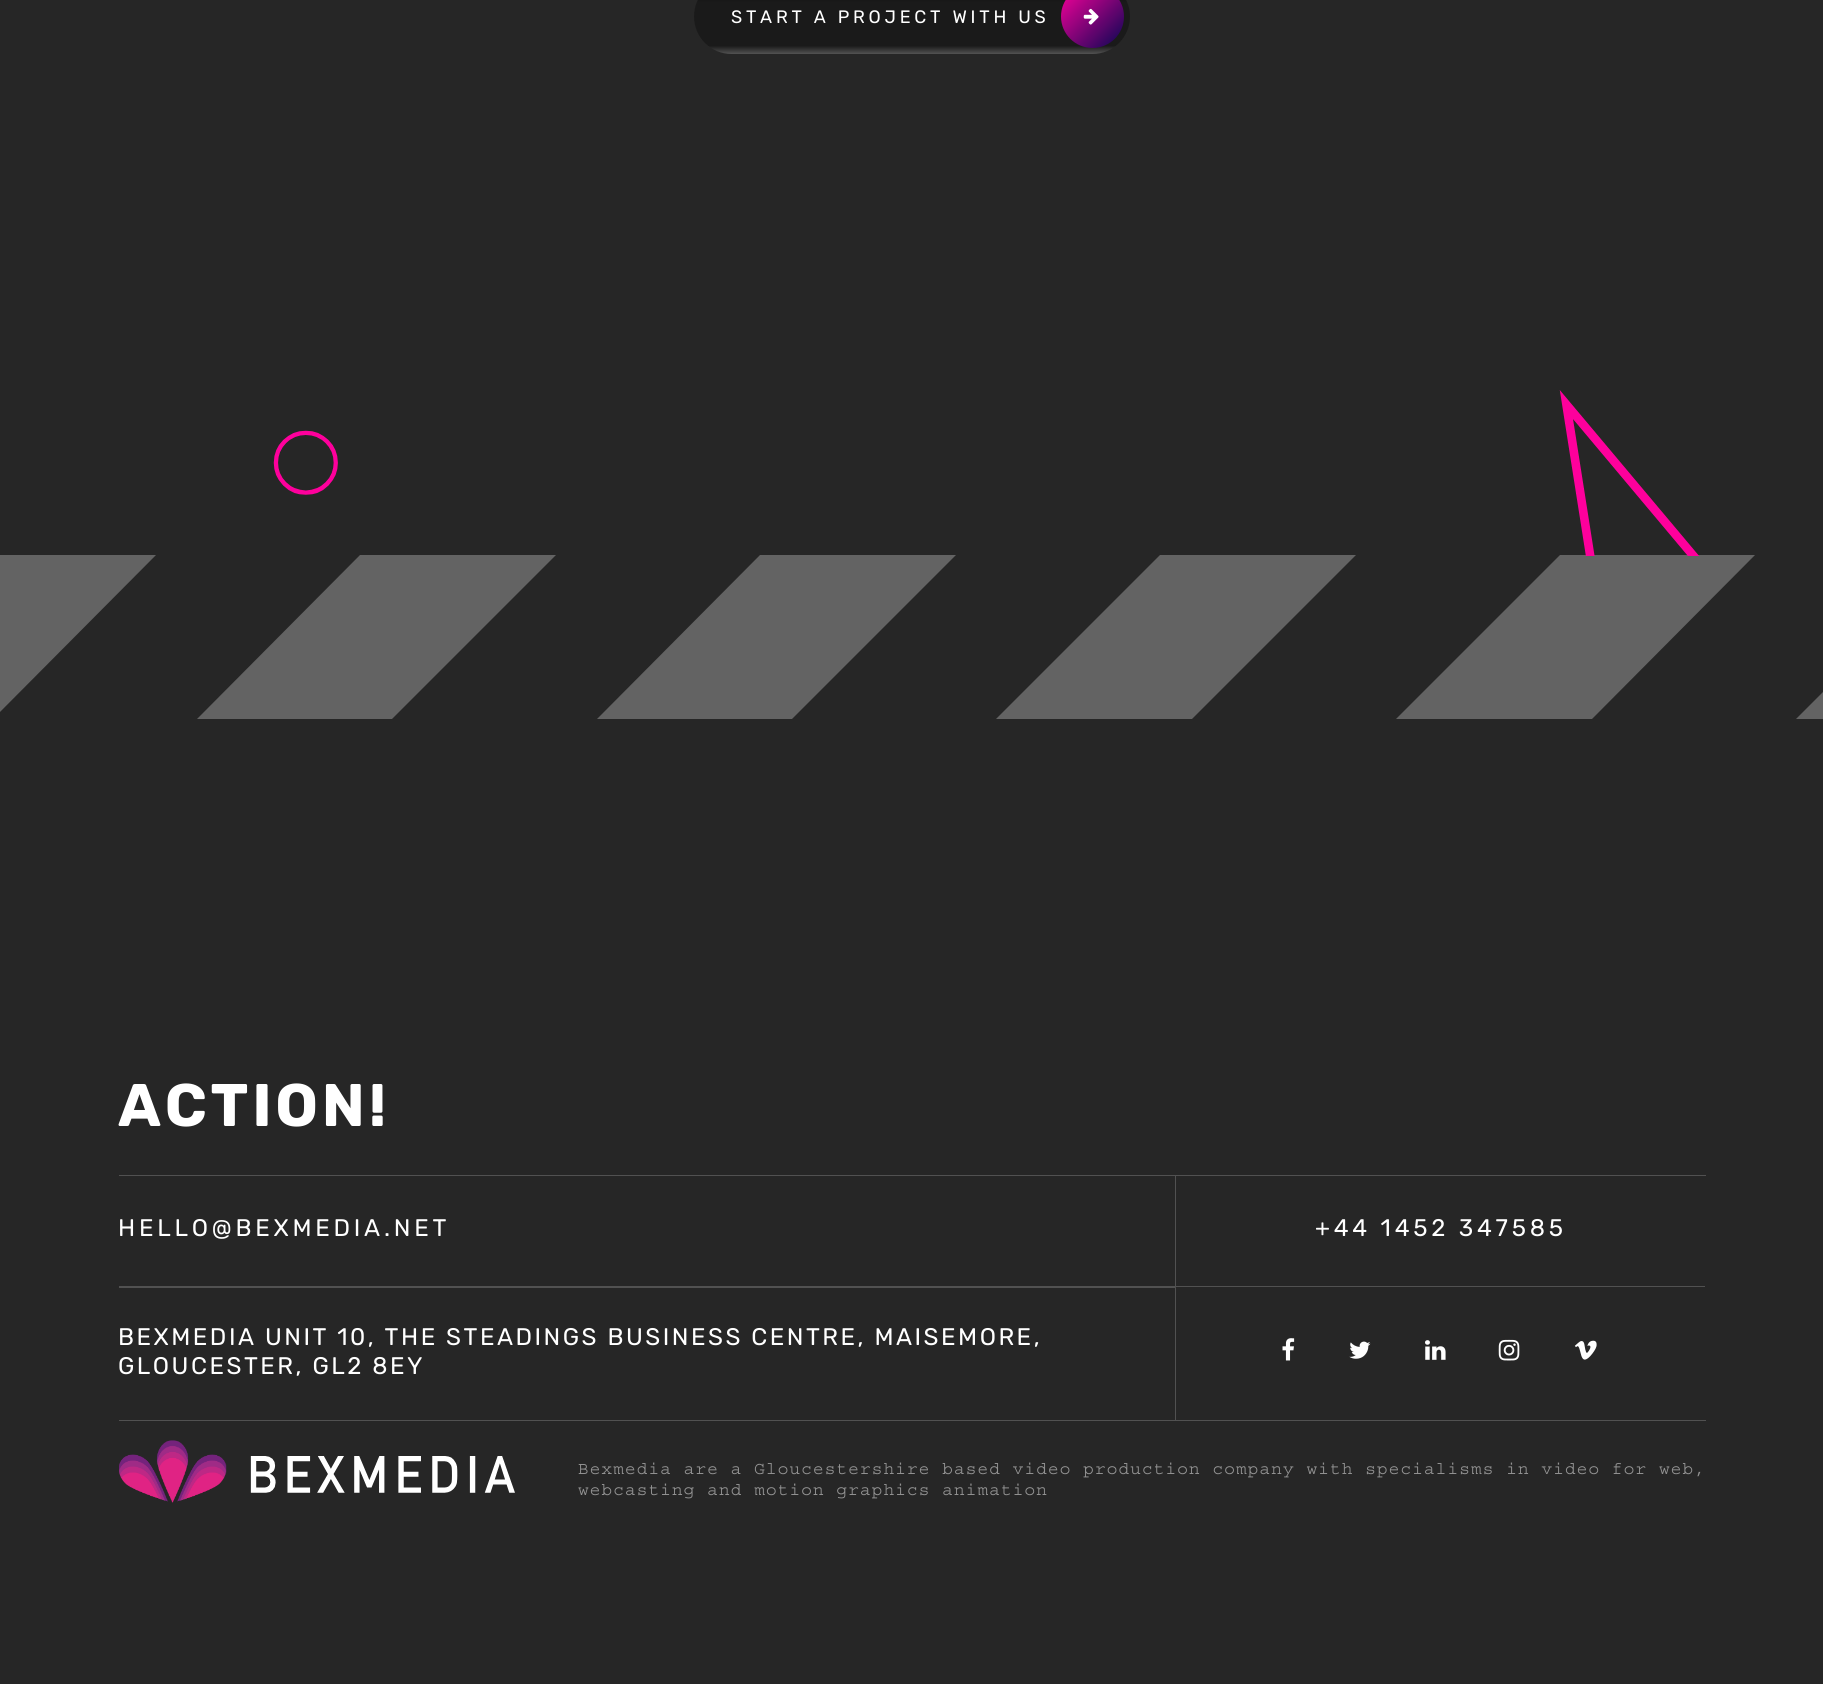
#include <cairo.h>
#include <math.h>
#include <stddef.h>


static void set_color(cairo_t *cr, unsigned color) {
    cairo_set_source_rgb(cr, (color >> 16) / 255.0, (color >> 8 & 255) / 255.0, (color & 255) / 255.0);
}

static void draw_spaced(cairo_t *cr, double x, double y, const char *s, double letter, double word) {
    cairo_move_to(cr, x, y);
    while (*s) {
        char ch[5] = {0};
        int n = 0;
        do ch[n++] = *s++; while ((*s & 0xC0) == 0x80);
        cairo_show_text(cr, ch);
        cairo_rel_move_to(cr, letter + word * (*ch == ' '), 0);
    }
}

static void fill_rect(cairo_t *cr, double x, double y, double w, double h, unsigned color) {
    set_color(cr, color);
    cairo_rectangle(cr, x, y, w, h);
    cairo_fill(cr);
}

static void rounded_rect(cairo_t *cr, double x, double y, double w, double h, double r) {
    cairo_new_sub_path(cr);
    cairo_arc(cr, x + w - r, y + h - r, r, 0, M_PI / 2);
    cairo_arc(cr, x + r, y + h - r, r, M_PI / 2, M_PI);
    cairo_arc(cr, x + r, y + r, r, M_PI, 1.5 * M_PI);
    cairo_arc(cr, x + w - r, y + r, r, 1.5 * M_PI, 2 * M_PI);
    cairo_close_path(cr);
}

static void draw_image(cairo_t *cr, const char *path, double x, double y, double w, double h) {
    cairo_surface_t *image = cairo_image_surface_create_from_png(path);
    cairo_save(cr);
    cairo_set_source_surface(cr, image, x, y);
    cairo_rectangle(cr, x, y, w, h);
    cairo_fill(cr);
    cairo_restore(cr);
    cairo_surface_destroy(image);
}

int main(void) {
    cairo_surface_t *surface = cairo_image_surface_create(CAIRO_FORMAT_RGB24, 1823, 1684);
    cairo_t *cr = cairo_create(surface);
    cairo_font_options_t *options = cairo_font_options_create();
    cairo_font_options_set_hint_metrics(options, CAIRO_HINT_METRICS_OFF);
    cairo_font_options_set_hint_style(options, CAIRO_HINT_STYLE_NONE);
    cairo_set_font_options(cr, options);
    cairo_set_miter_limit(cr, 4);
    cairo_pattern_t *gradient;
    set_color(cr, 0x262626);
    cairo_paint(cr);
    set_color(cr, 0x636363);
    cairo_new_path(cr);
    cairo_move_to(cr, 360, 555);
    cairo_line_to(cr, 556, 555);
    cairo_line_to(cr, 392, 719);
    cairo_line_to(cr, 197, 719);
    cairo_close_path(cr);
    cairo_fill(cr);
    cairo_new_path(cr);
    cairo_move_to(cr, 760, 555);
    cairo_line_to(cr, 956, 555);
    cairo_line_to(cr, 792, 719);
    cairo_line_to(cr, 597, 719);
    cairo_close_path(cr);
    cairo_fill(cr);
    cairo_new_path(cr);
    cairo_move_to(cr, 1160, 555);
    cairo_line_to(cr, 1356, 555);
    cairo_line_to(cr, 1192, 719);
    cairo_line_to(cr, 996, 719);
    cairo_close_path(cr);
    cairo_fill(cr);
    cairo_new_path(cr);
    cairo_move_to(cr, 1560, 555);
    cairo_line_to(cr, 1755, 555);
    cairo_line_to(cr, 1592, 719);
    cairo_line_to(cr, 1396, 719);
    cairo_close_path(cr);
    cairo_fill(cr);
    draw_image(cr, "assets/img1.png", 273, 390, 1426, 166);
    gradient = cairo_pattern_create_linear(912, -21, 912, 54);
    cairo_pattern_add_color_stop_rgba(gradient, 0, 0.004, 0.004, 0.004, 1);
    cairo_pattern_add_color_stop_rgba(gradient, 0.31, 0.102, 0.102, 0.102, 1);
    cairo_pattern_add_color_stop_rgba(gradient, 0.89, 0.102, 0.102, 0.102, 1);
    cairo_pattern_add_color_stop_rgba(gradient, 1, 0.322, 0.322, 0.322, 1);
    cairo_set_source(cr, gradient);
    cairo_pattern_destroy(gradient);
    rounded_rect(cr, 694, -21, 436, 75, 37.5);
    cairo_fill(cr);
    cairo_select_font_face(cr, "Rubik", CAIRO_FONT_SLANT_NORMAL, CAIRO_FONT_WEIGHT_NORMAL);
    cairo_set_font_size(cr, 18);
    set_color(cr, 0xFFFFFF);
    draw_spaced(cr, 731, 23, "START A PROJECT WITH US", 3.75, 0);
    gradient = cairo_pattern_create_linear(1061, -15, 1124, 48);
    cairo_pattern_add_color_stop_rgba(gradient, 0, 1, 0, 0.612, 1);
    cairo_pattern_add_color_stop_rgba(gradient, 1, 0.027, 0.027, 0.325, 1);
    cairo_set_source(cr, gradient);
    cairo_pattern_destroy(gradient);
    cairo_new_path(cr);
    cairo_arc(cr, 1092.5, 16.5, 31.5, 0, 2 * M_PI);
    cairo_fill(cr);
    draw_image(cr, "assets/img2.png", 1083, 8, 16, 17);
    set_color(cr, 0x636363);
    cairo_new_path(cr);
    cairo_move_to(cr, 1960, 555);
    cairo_line_to(cr, 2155, 555);
    cairo_line_to(cr, 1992, 719);
    cairo_line_to(cr, 1796, 719);
    cairo_close_path(cr);
    cairo_fill(cr);
    cairo_new_path(cr);
    cairo_move_to(cr, -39, 555);
    cairo_line_to(cr, 156, 555);
    cairo_line_to(cr, -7, 719);
    cairo_line_to(cr, -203, 719);
    cairo_close_path(cr);
    cairo_fill(cr);
    cairo_select_font_face(cr, "Rubik", CAIRO_FONT_SLANT_NORMAL, CAIRO_FONT_WEIGHT_BOLD);
    cairo_set_font_size(cr, 60);
    set_color(cr, 0xFFFFFF);
    draw_spaced(cr, 118, 1126, "ACTION!", 3.75, 0);
    fill_rect(cr, 119, 1175, 1587, 1, 0x515151);
    fill_rect(cr, 119, 1420, 1587, 1, 0x515151);
    cairo_new_path(cr);
    cairo_move_to(cr, 1176, 1176);
    cairo_line_to(cr, 1176, 1288);
    cairo_line_to(cr, 1175, 1286);
    cairo_line_to(cr, 1175, 1176);
    cairo_close_path(cr);
    cairo_fill(cr);
    cairo_set_source_rgba(cr, 1, 1, 1, 0.2);
    cairo_new_path(cr);
    cairo_move_to(cr, 1176, 1288);
    cairo_line_to(cr, 119, 1288);
    cairo_line_to(cr, 119, 1286);
    cairo_line_to(cr, 1175, 1286);
    cairo_close_path(cr);
    cairo_fill(cr);
    cairo_select_font_face(cr, "Rubik", CAIRO_FONT_SLANT_NORMAL, CAIRO_FONT_WEIGHT_NORMAL);
    cairo_set_font_size(cr, 24);
    set_color(cr, 0xFFFFFF);
    draw_spaced(cr, 118, 1236, "HELLO@BEXMEDIA.NET", 3.75, 0);
    fill_rect(cr, 1176, 1286, 529, 1, 0x515151);
    set_color(cr, 0xFFFFFF);
    draw_spaced(cr, 1315, 1236, "+44 1452 347585", 3.75, 0);
    fill_rect(cr, 1175, 1288, 1, 132, 0x515151);
    set_color(cr, 0xFFFFFF);
    draw_spaced(cr, 118, 1345, "BEXMEDIA UNIT 10, THE STEADINGS BUSINESS CENTRE, MAISEMORE,", 2.5, 0);
    draw_spaced(cr, 118, 1374, "GLOUCESTER, GL2 8EY", 2.5, 0);
    draw_image(cr, "assets/img3.png", 1282, 1338, 13, 23);
    draw_image(cr, "assets/img4.png", 1349, 1341, 22, 18);
    draw_image(cr, "assets/img5.png", 1425, 1340, 21, 20);
    draw_image(cr, "assets/img6.png", 1498, 1339, 22, 22);
    draw_image(cr, "assets/img7.png", 1574, 1340, 23, 20);
    draw_image(cr, "assets/img8.png", 119, 1440, 396, 63);
    cairo_select_font_face(cr, "Courier Medium", CAIRO_FONT_SLANT_NORMAL, CAIRO_FONT_WEIGHT_NORMAL);
    cairo_set_font_size(cr, 17.5);
    set_color(cr, 0x939393);
    draw_spaced(cr, 578, 1474, "Bexmedia are a Gloucestershire based video production company with specialisms in video for web,", 1.25, 0);
    draw_spaced(cr, 578, 1495, "webcasting and motion graphics animation", 1.25, 0);
    cairo_surface_write_to_png(surface, "output.png");
    cairo_font_options_destroy(options);
    cairo_destroy(cr);
    cairo_surface_destroy(surface);
    return 0;
}
